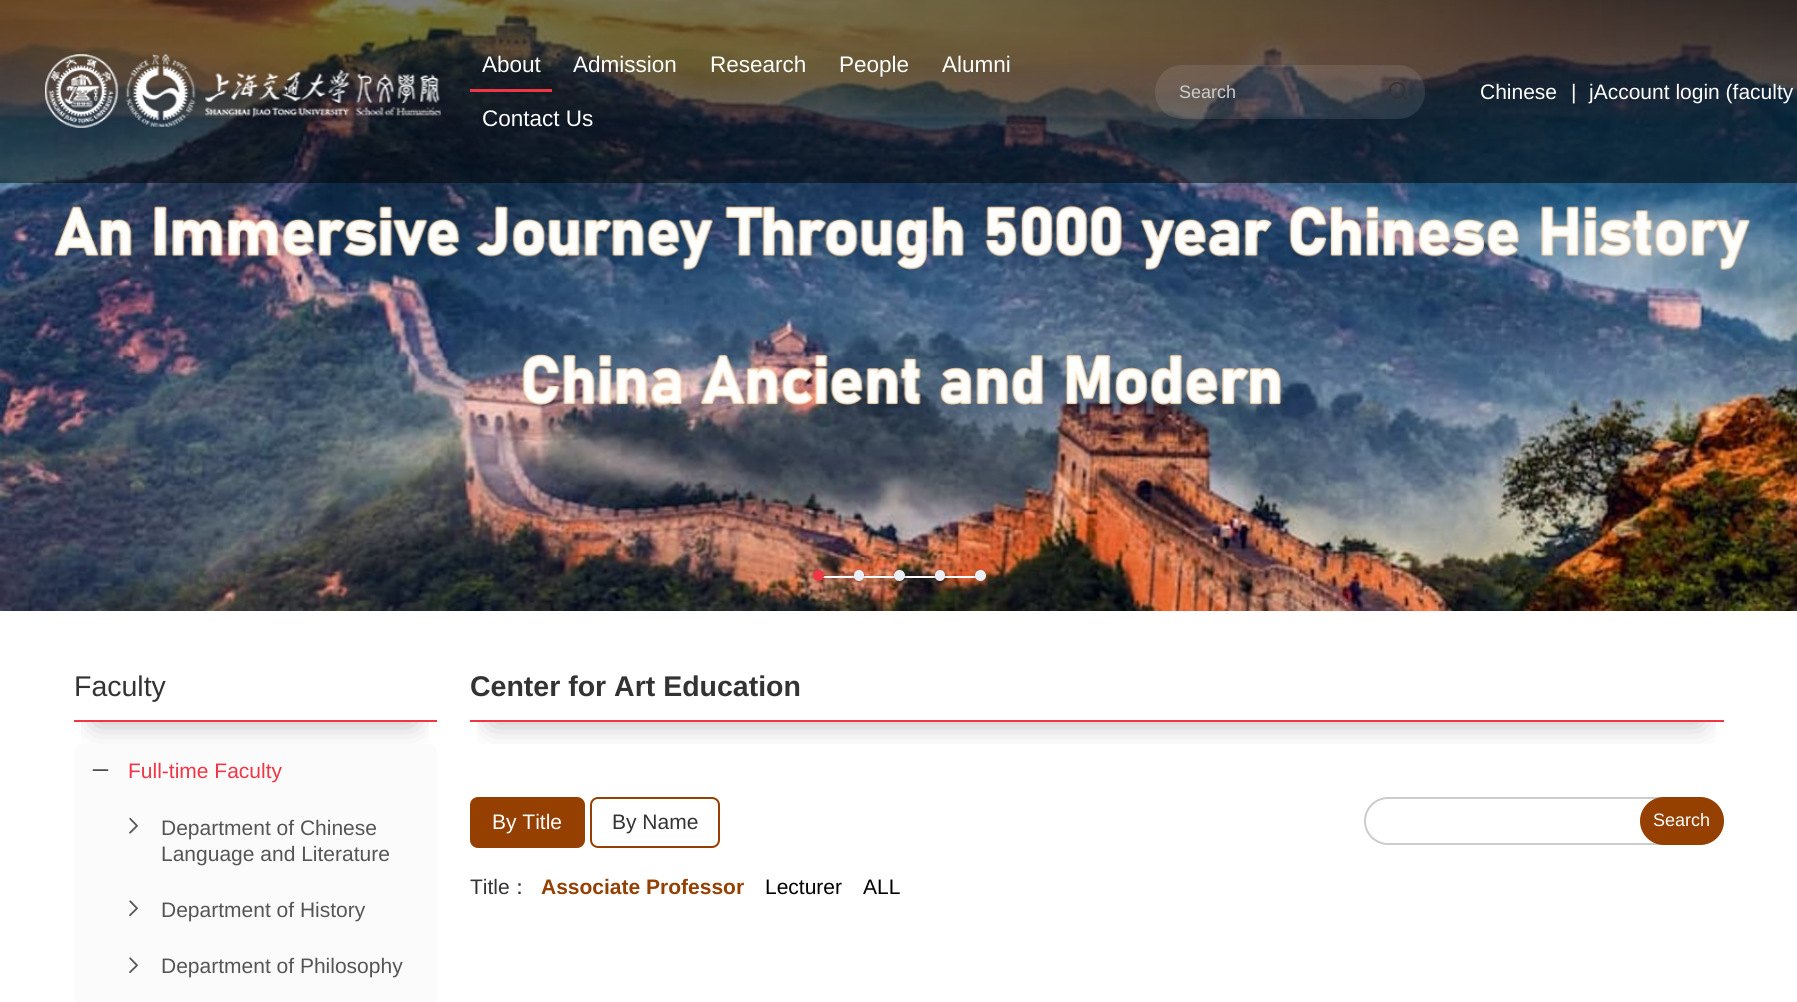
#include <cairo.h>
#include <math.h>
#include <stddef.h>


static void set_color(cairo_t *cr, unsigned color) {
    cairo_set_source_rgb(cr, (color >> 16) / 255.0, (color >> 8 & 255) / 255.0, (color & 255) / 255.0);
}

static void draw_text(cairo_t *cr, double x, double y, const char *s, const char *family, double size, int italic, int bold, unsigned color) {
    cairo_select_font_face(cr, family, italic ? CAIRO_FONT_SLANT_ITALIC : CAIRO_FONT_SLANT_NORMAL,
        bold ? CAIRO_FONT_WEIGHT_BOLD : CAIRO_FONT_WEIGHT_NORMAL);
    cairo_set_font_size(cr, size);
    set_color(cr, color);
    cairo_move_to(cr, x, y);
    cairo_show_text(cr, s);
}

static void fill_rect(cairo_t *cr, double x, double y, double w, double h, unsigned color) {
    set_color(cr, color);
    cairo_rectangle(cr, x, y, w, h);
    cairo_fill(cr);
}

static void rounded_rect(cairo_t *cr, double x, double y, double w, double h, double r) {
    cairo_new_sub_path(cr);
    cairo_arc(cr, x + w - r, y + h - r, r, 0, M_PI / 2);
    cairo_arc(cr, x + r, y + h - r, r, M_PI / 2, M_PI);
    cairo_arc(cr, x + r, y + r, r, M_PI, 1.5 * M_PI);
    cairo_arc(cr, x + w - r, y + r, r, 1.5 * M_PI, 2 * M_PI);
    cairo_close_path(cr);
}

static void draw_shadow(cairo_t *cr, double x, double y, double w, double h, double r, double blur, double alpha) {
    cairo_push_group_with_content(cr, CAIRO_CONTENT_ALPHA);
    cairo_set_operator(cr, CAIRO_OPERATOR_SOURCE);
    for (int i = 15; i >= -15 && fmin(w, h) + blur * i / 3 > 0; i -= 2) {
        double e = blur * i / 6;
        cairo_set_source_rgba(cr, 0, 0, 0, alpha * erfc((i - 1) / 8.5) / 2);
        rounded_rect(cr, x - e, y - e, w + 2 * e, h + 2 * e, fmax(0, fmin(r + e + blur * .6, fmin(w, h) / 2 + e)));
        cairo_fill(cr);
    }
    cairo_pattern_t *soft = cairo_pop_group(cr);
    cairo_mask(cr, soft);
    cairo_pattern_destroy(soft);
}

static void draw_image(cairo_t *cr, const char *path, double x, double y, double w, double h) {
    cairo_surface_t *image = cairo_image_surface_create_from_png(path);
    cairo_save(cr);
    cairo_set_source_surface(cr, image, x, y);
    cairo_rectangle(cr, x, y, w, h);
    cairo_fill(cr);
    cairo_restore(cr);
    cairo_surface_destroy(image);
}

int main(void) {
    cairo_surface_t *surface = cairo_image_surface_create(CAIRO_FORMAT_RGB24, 1797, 1002);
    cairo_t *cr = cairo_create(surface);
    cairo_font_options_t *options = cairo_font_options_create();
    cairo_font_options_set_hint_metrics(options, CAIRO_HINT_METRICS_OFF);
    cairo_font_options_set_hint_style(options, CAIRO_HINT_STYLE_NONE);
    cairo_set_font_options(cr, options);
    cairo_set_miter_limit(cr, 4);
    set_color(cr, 0xFFFFFF);
    cairo_paint(cr);
    draw_image(cr, "assets/img1.png", 0, 0, 1797, 611);
    fill_rect(cr, 818, 576, 162, 2, 0xFFFFFF);
    set_color(cr, 0x000000);
    draw_shadow(cr, 813, 570, 11, 11, 5.5, 2, 0.3);
    set_color(cr, 0xF03644);
    cairo_arc(cr, 818.5, 575.5, 5.5, 0, 2 * M_PI);
    cairo_fill(cr);
    set_color(cr, 0x000000);
    draw_shadow(cr, 854, 570, 10, 11, 5, 2, 0.3);
    set_color(cr, 0xEAEEF5);
    rounded_rect(cr, 854, 570, 10, 11, 5);
    cairo_fill(cr);
    set_color(cr, 0x000000);
    draw_shadow(cr, 894, 570, 11, 11, 5.5, 2, 0.3);
    set_color(cr, 0xEAEEF5);
    cairo_arc(cr, 899.5, 575.5, 5.5, 0, 2 * M_PI);
    cairo_fill(cr);
    set_color(cr, 0x000000);
    draw_shadow(cr, 935, 570, 10, 11, 5, 2, 0.3);
    set_color(cr, 0xEAEEF5);
    rounded_rect(cr, 935, 570, 10, 11, 5);
    cairo_fill(cr);
    set_color(cr, 0x000000);
    draw_shadow(cr, 975, 570, 11, 11, 5.5, 2, 0.3);
    set_color(cr, 0xEAEEF5);
    cairo_arc(cr, 980.5, 575.5, 5.5, 0, 2 * M_PI);
    cairo_fill(cr);
    cairo_set_source_rgba(cr, 0, 0, 0, 0.5);
    cairo_rectangle(cr, 0, 0, 1797, 183);
    cairo_fill(cr);
    draw_image(cr, "assets/img2.png", 45, 54, 396, 74);
    draw_text(cr, 482, 72, "About", "Liberation Sans", 22.5, 0, 0, 0xFFFFFF);
    fill_rect(cr, 470, 89, 82, 3, 0xF03644);
    draw_text(cr, 573, 72, "Admission", "Liberation Sans", 22.5, 0, 0, 0xFFFFFF);
    draw_text(cr, 710, 72, "Research", "Liberation Sans", 22.5, 0, 0, 0xFFFFFF);
    draw_text(cr, 839, 72, "People", "Liberation Sans", 22.5, 0, 0, 0xFFFFFF);
    draw_text(cr, 942, 72, "Alumni", "Liberation Sans", 22.5, 0, 0, 0xFFFFFF);
    draw_text(cr, 482, 126, "Contact Us", "Liberation Sans", 22.5, 0, 0, 0xFFFFFF);
    cairo_set_source_rgba(cr, 1, 1, 1, 0.1);
    rounded_rect(cr, 1155, 65, 270, 54, 27);
    cairo_fill(cr);
    draw_text(cr, 1179, 98, "Search", "Liberation Sans", 18, 0, 0, 0xCCCCCC);
    draw_image(cr, "assets/img3.png", 1389, 82, 18, 18);
    draw_text(cr, 1480, 99, "Chinese", "Liberation Sans", 21, 0, 0, 0xFFFFFF);
    draw_text(cr, 1571, 99, "|", "Liberation Sans", 21, 0, 0, 0xFFFFFF);
    draw_text(cr, 1589, 99, "jAccount login (faculty", "Liberation Sans", 21, 0, 0, 0xFFFFFF);
    cairo_save(cr);
    cairo_rectangle(cr, 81, 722, 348, 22);
    cairo_clip(cr);
    set_color(cr, 0x000000);
    draw_shadow(cr, 96, 701, 318, 21, 0, 15, 0.3);
    cairo_restore(cr);
    fill_rect(cr, 74, 720, 363, 2, 0xF03644);
    draw_text(cr, 74, 696, "Faculty", "Liberation Sans", 28.5, 0, 0, 0x333333);
    set_color(cr, 0xFBFBFB);
    rounded_rect(cr, 74, 744, 363, 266, 8);
    cairo_fill(cr);
    draw_image(cr, "assets/img4.png", 92, 769, 17, 2);
    draw_text(cr, 128, 778, "Full-time Faculty", "Liberation Sans", 21, 0, 0, 0xF03644);
    draw_image(cr, "assets/img5.png", 129, 817, 9, 17);
    draw_text(cr, 161, 835, "Department of Chinese", "Liberation Sans", 21, 0, 0, 0x555555);
    draw_text(cr, 161, 861, "Language and Literature", "Liberation Sans", 21, 0, 0, 0x555555);
    draw_image(cr, "assets/img6.png", 129, 900, 9, 16);
    draw_text(cr, 161, 917, "Department of History", "Liberation Sans", 21, 0, 0, 0x555555);
    draw_image(cr, "assets/img6.png", 129, 957, 9, 16);
    draw_text(cr, 161, 973, "Department of Philosophy", "Liberation Sans", 21, 0, 0, 0x555555);
    cairo_save(cr);
    cairo_rectangle(cr, 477, 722, 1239, 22);
    cairo_clip(cr);
    set_color(cr, 0x000000);
    draw_shadow(cr, 492, 701, 1209, 21, 0, 15, 0.3);
    cairo_restore(cr);
    fill_rect(cr, 470, 720, 1254, 2, 0xF03644);
    draw_text(cr, 470, 696, "Center for Art Education", "Liberation Sans", 28.5, 0, 1, 0x333333);
    set_color(cr, 0x953F01);
    rounded_rect(cr, 471, 798, 113, 49, 7);
    cairo_fill_preserve(cr);
    cairo_stroke(cr);
    draw_text(cr, 492, 829, "By Title", "Liberation Sans", 21, 0, 0, 0xFFFFFF);
    rounded_rect(cr, 591, 798, 128, 49, 7);
    set_color(cr, 0x953F01);
    cairo_stroke(cr);
    draw_text(cr, 612, 829, "By Name", "Liberation Sans", 21, 0, 0, 0x333333);
    rounded_rect(cr, 1365, 798, 358, 46, 23);
    set_color(cr, 0xCCCCCC);
    cairo_stroke(cr);
    set_color(cr, 0x953F01);
    rounded_rect(cr, 1641, 798, 82, 46, 23);
    cairo_fill_preserve(cr);
    cairo_stroke(cr);
    draw_text(cr, 1653, 826, "Search", "Liberation Sans", 18, 0, 0, 0xFFFFFF);
    draw_text(cr, 470, 894, "Title", "Liberation Sans", 21, 0, 0, 0x333333);
    draw_text(cr, 509, 894, "：", "WenQuanYi Zen Hei Medium", 21, 0, 0, 0x333333);
    draw_text(cr, 541, 894, "Associate Professor", "Liberation Sans", 21, 0, 1, 0x953F01);
    draw_text(cr, 765, 894, "Lecturer", "Liberation Sans", 21, 0, 0, 0x000000);
    draw_text(cr, 863, 894, "ALL", "Liberation Sans", 21, 0, 0, 0x000000);
    cairo_surface_write_to_png(surface, "output.png");
    cairo_font_options_destroy(options);
    cairo_destroy(cr);
    cairo_surface_destroy(surface);
    return 0;
}
